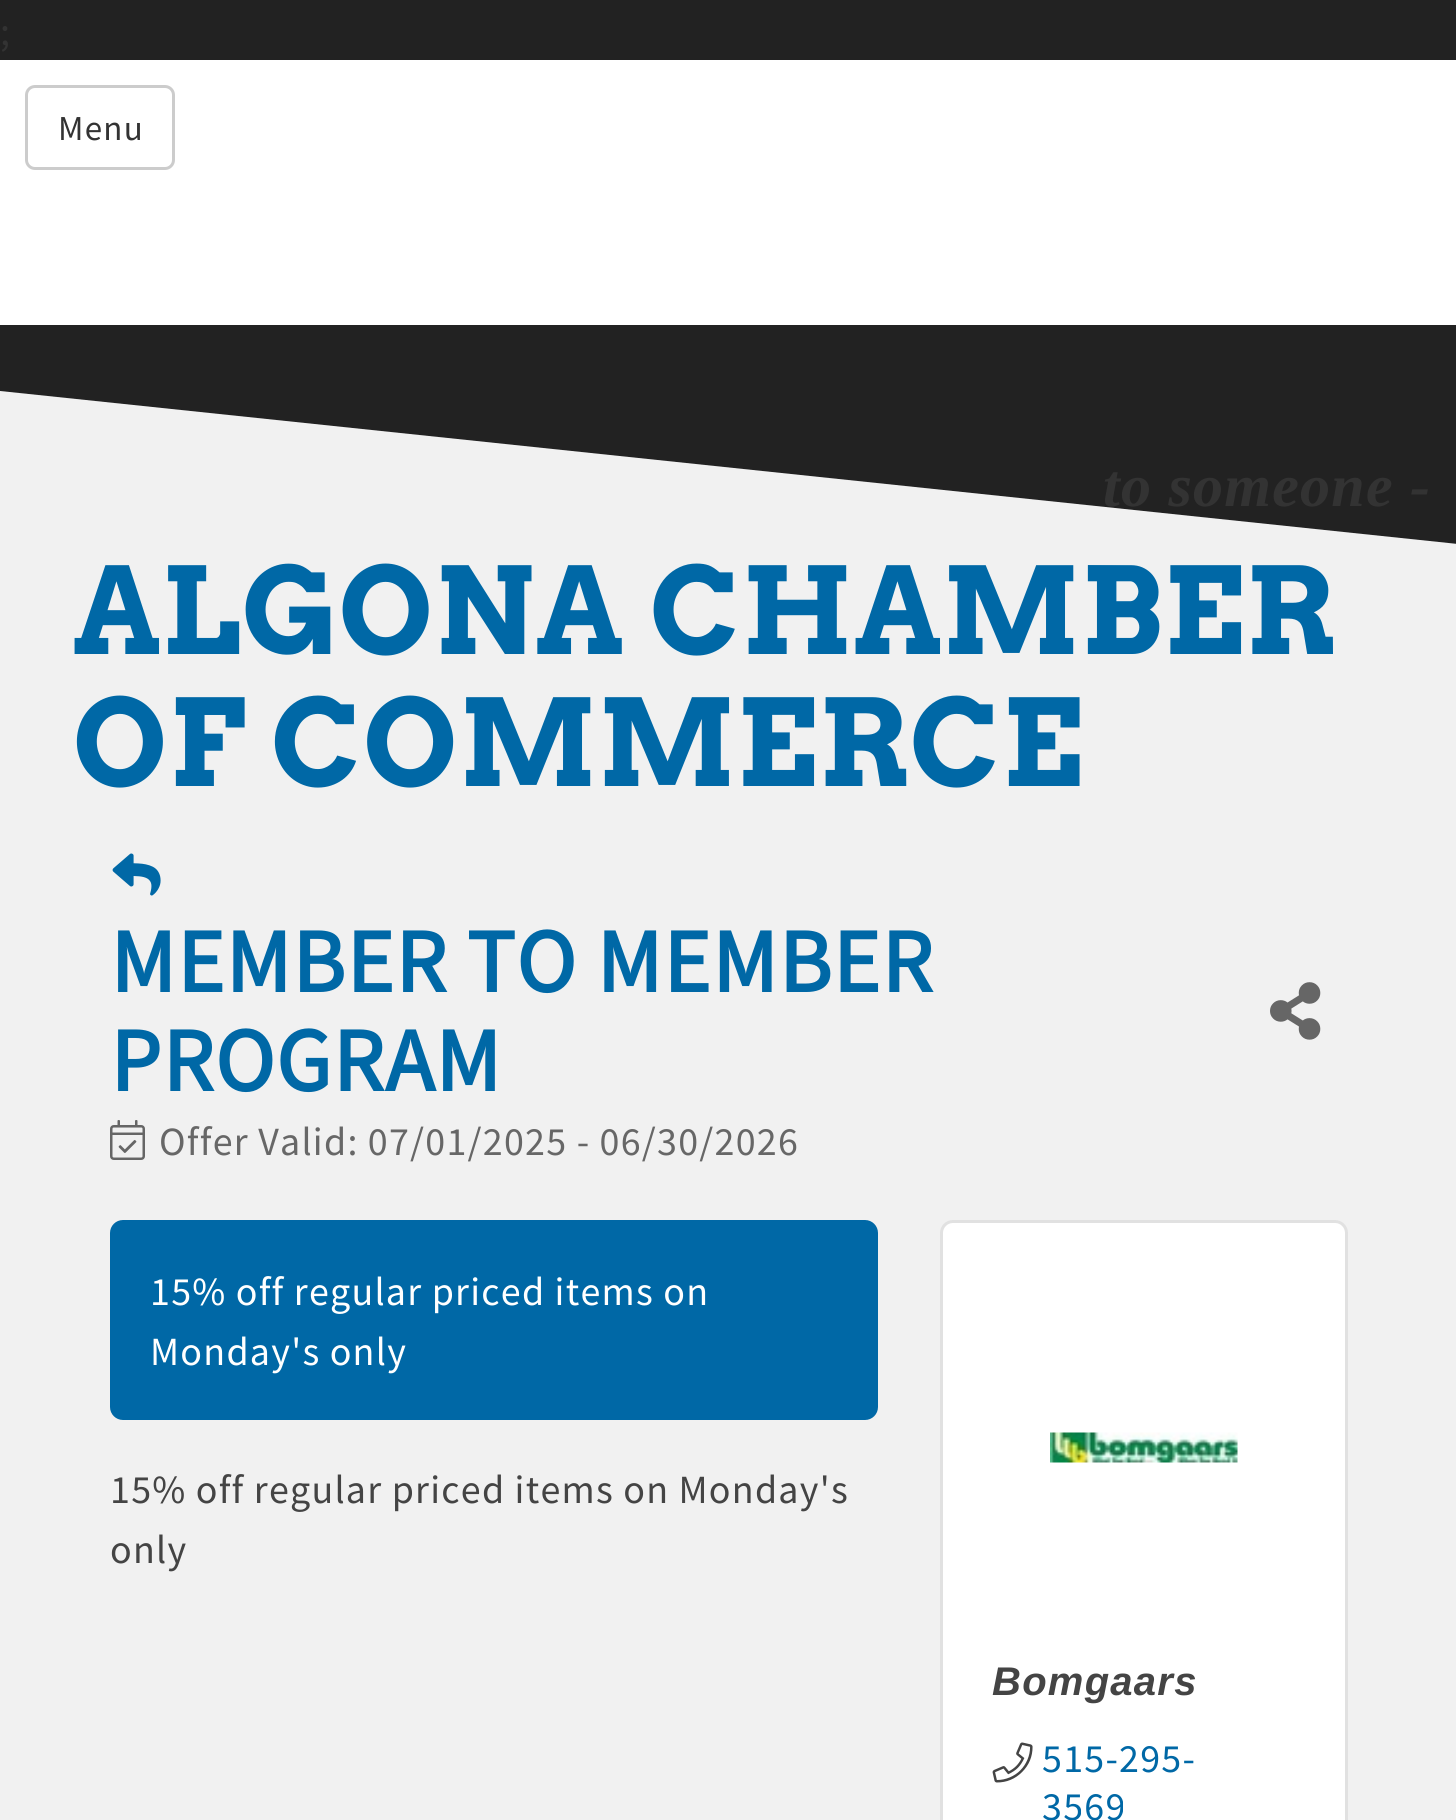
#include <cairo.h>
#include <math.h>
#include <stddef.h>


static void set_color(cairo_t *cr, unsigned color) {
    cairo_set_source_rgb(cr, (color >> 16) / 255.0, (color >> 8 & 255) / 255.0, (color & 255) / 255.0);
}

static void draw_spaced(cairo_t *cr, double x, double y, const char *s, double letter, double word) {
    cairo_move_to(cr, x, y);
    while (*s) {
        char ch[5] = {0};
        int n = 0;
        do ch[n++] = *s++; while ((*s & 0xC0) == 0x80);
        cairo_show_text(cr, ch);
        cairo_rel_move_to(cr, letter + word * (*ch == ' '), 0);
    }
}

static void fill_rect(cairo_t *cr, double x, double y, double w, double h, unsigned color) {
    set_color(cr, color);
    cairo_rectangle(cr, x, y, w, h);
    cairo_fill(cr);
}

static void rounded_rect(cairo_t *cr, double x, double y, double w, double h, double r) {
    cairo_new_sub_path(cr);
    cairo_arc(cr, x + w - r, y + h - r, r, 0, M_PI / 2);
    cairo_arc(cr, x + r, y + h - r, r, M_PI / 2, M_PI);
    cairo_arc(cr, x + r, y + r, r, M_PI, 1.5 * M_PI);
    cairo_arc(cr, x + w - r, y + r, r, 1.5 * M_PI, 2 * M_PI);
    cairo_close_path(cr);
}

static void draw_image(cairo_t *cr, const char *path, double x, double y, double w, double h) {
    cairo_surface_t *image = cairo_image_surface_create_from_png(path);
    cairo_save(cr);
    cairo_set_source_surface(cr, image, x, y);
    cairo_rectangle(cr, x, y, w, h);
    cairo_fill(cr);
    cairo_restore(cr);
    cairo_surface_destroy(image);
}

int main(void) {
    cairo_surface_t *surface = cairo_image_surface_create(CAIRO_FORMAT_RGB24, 1456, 1820);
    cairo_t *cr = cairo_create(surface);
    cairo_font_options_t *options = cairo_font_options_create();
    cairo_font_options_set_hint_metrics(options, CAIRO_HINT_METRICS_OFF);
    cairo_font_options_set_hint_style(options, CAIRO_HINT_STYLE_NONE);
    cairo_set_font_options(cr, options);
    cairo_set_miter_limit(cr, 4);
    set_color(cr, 0x222222);
    cairo_paint(cr);
    cairo_select_font_face(cr, "Source Sans Pro", CAIRO_FONT_SLANT_NORMAL, CAIRO_FONT_WEIGHT_NORMAL);
    cairo_set_font_size(cr, 40);
    set_color(cr, 0x333333);
    draw_spaced(cr, 0, 45, ";", 1.25, 0);
    fill_rect(cr, 0, 60, 1456, 265, 0xFFFFFF);
    rounded_rect(cr, 26.5, 86.5, 147, 82, 8.5);
    set_color(cr, 0xCCCCCC);
    cairo_set_line_width(cr, 3);
    cairo_stroke(cr);
    cairo_set_font_size(cr, 35);
    set_color(cr, 0x333333);
    draw_spaced(cr, 58, 140, "Menu", 1.25, 0);
    cairo_select_font_face(cr, "Liberation Serif", CAIRO_FONT_SLANT_ITALIC, CAIRO_FONT_WEIGHT_BOLD);
    cairo_set_font_size(cr, 60);
    draw_spaced(cr, 1103, 506, "to someone -", 1.25, 0);
    set_color(cr, 0xF1F1F1);
    cairo_new_path(cr);
    cairo_move_to(cr, 0, 391);
    cairo_line_to(cr, 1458, 544);
    cairo_line_to(cr, 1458, 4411);
    cairo_line_to(cr, 0, 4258);
    cairo_close_path(cr);
    cairo_fill(cr);
    cairo_select_font_face(cr, "Arvo", CAIRO_FONT_SLANT_NORMAL, CAIRO_FONT_WEIGHT_BOLD);
    cairo_set_font_size(cr, 120);
    set_color(cr, 0x0068A6);
    draw_spaced(cr, 73, 654, "ALGONA CHAMBER", 1.25, 0);
    draw_spaced(cr, 73, 786, "OF COMMERCE", 1.25, 0);
    draw_image(cr, "assets/img1.png", 112, 853, 49, 43);
    cairo_select_font_face(cr, "Source Sans Pro", CAIRO_FONT_SLANT_NORMAL, CAIRO_FONT_WEIGHT_BOLD);
    cairo_set_font_size(cr, 90);
    draw_spaced(cr, 110, 992, "MEMBER TO MEMBER", 1.25, 0);
    draw_spaced(cr, 110, 1091, "PROGRAM", 1.25, 0);
    draw_image(cr, "assets/img2.png", 1270, 982, 51, 58);
    draw_image(cr, "assets/img3.png", 110, 1120, 35, 40);
    cairo_select_font_face(cr, "Source Sans Pro", CAIRO_FONT_SLANT_NORMAL, CAIRO_FONT_WEIGHT_NORMAL);
    cairo_set_font_size(cr, 40);
    set_color(cr, 0x676767);
    draw_spaced(cr, 159, 1155, "Offer Valid: 07/01/2025 - 06/30/2026", 1.25, 0);
    set_color(cr, 0x0068A6);
    rounded_rect(cr, 111.5, 1221.5, 765, 197, 11.5);
    cairo_fill_preserve(cr);
    cairo_stroke(cr);
    set_color(cr, 0xFFFFFF);
    draw_spaced(cr, 150, 1305, "15% off regular priced items on", 1.25, 0);
    draw_spaced(cr, 150, 1365, "Monday's only", 1.25, 0);
    set_color(cr, 0x444444);
    draw_spaced(cr, 110, 1503, "15% off regular priced items on Monday's", 1.25, 0);
    draw_spaced(cr, 110, 1563, "only", 1.25, 0);
    set_color(cr, 0xFFFFFF);
    rounded_rect(cr, 940, 1220, 408, 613, 13);
    cairo_fill(cr);
    rounded_rect(cr, 941.5, 1221.5, 405, 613, 11.5);
    cairo_set_source_rgba(cr, 0, 0, 0, 0.12);
    cairo_stroke(cr);
    draw_image(cr, "assets/img4.png", 1050, 1432, 188, 31);
    cairo_select_font_face(cr, "Liberation Sans", CAIRO_FONT_SLANT_ITALIC, CAIRO_FONT_WEIGHT_BOLD);
    set_color(cr, 0x444444);
    draw_spaced(cr, 992, 1695, "Bomgaars", 1.25, 0);
    draw_image(cr, "assets/img5.png", 992, 1742, 41, 41);
    cairo_select_font_face(cr, "Source Sans Pro", CAIRO_FONT_SLANT_NORMAL, CAIRO_FONT_WEIGHT_NORMAL);
    set_color(cr, 0x0068A6);
    draw_spaced(cr, 1042, 1772, "515-295-", 1.25, 0);
    draw_spaced(cr, 1042, 1820, "3569", 1.25, 0);
    cairo_surface_write_to_png(surface, "output.png");
    cairo_font_options_destroy(options);
    cairo_destroy(cr);
    cairo_surface_destroy(surface);
    return 0;
}
